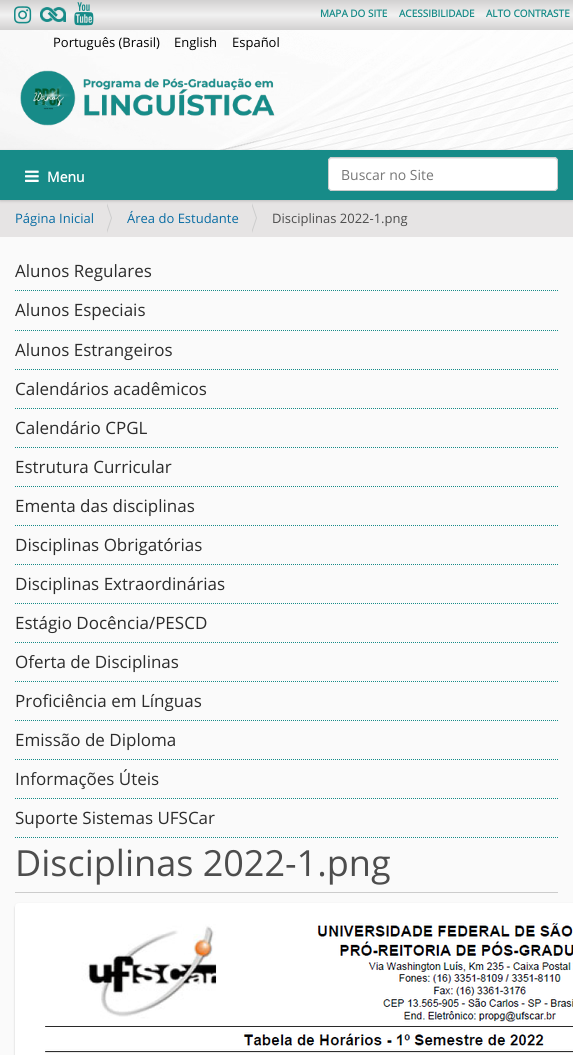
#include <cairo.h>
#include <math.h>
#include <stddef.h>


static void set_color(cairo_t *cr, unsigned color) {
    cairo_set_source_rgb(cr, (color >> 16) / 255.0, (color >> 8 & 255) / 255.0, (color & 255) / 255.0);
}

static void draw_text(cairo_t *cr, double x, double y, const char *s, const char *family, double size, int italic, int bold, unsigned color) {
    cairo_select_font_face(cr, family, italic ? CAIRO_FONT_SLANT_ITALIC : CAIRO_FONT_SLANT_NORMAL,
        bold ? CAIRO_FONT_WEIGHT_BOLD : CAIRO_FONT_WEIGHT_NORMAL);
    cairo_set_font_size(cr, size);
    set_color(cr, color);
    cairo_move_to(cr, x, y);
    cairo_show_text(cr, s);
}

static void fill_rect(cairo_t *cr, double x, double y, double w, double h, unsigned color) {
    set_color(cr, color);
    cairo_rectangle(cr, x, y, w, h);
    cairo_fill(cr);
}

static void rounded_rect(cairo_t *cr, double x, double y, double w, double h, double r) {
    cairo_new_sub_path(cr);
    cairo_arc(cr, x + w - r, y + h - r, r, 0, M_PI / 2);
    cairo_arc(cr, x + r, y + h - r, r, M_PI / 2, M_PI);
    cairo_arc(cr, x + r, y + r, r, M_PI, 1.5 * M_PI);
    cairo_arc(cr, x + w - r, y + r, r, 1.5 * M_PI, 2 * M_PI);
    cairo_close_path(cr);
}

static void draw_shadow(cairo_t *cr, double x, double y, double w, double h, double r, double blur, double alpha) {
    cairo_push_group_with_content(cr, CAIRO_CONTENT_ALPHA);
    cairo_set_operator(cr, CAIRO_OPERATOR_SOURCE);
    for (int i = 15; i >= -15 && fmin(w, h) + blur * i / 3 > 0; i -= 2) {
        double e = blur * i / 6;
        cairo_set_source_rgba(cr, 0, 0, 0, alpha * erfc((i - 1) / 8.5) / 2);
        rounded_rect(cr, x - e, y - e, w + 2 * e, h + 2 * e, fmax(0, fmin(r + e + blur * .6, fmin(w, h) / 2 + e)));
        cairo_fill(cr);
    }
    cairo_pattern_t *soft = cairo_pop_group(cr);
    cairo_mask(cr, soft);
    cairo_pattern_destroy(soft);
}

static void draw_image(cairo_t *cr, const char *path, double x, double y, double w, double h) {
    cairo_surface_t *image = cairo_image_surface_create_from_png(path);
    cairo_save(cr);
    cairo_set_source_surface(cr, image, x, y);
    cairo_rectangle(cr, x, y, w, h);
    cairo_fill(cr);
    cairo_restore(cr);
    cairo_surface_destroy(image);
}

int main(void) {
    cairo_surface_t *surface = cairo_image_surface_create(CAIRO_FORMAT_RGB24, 573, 1055);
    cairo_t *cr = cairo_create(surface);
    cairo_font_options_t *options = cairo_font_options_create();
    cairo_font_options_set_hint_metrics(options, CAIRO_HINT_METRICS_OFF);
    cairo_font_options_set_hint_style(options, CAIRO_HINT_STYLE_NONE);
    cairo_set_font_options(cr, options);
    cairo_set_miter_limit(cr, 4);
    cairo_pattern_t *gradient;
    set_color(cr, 0xFAFAFA);
    cairo_paint(cr);
    gradient = cairo_pattern_create_linear(287, 0, 287, 30);
    cairo_pattern_add_color_stop_rgba(gradient, 0, 0.824, 0.82, 0.82, 1);
    cairo_pattern_add_color_stop_rgba(gradient, 0.25, 0.886, 0.882, 0.882, 1);
    cairo_pattern_add_color_stop_rgba(gradient, 0.5, 0.945, 0.945, 0.945, 1);
    cairo_pattern_add_color_stop_rgba(gradient, 0.75, 0.886, 0.882, 0.882, 1);
    cairo_pattern_add_color_stop_rgba(gradient, 1, 0.824, 0.82, 0.82, 1);
    cairo_set_source(cr, gradient);
    cairo_pattern_destroy(gradient);
    cairo_rectangle(cr, 0, 0, 573, 30);
    cairo_fill(cr);
    draw_image(cr, "assets/img1.png", 14, 6, 18, 18);
    draw_image(cr, "assets/img2.png", 40, 7, 26, 15);
    draw_image(cr, "assets/img3.png", 74, 2, 20, 24);
    draw_image(cr, "assets/img4.png", 0, 30, 573, 120);
    draw_text(cr, 320, 17, "MAPA DO SITE", "Open Sans", 10, 0, 1, 0x178B88);
    draw_text(cr, 399, 17, "ACESSIBILIDADE", "Open Sans", 10, 0, 1, 0x178B88);
    draw_text(cr, 486, 17, "ALTO CONTRASTE", "Open Sans", 10, 0, 1, 0x178B88);
    draw_text(cr, 53, 47, "Português (Brasil)", "Open Sans", 13, 0, 0, 0x000000);
    draw_text(cr, 174, 47, "English", "Open Sans", 13, 0, 0, 0x000000);
    draw_text(cr, 232, 47, "Español", "Open Sans", 13, 0, 0, 0x000000);
    draw_image(cr, "assets/img5.png", 20, 70, 255, 56);
    fill_rect(cr, 0, 200, 573, 37, 0xE6E4E4);
    set_color(cr, 0x000000);
    draw_shadow(cr, 0, 151, 573, 50, 0, 1.5, 0.17);
    fill_rect(cr, 0, 150, 573, 50, 0x178B88);
    set_color(cr, 0xFFFFFF);
    rounded_rect(cr, 328, 157, 230, 34, 4);
    cairo_fill(cr);
    set_color(cr, 0xECECEC);
    cairo_new_path(cr);
    cairo_move_to(cr, 332, 159);
    cairo_line_to(cr, 554, 159);
    cairo_curve_to(cr, 556, 159, 557, 160, 557, 162);
    cairo_line_to(cr, 557, 161);
    cairo_curve_to(cr, 557, 159, 556, 158, 554, 158);
    cairo_line_to(cr, 332, 158);
    cairo_curve_to(cr, 330, 158, 329, 159, 329, 161);
    cairo_line_to(cr, 329, 162);
    cairo_curve_to(cr, 329, 160, 330, 159, 332, 159);
    cairo_close_path(cr);
    cairo_fill(cr);
    rounded_rect(cr, 328.5, 157.5, 229, 33, 3.5);
    set_color(cr, 0xCCCCCC);
    cairo_set_line_width(cr, 1);
    cairo_stroke(cr);
    draw_text(cr, 341, 180, "Buscar no Site", "Open Sans", 14, 0, 0, 0x777777);
    draw_image(cr, "assets/img6.png", 25, 170, 14, 12);
    draw_text(cr, 47, 182, "Menu", "Open Sans", 14, 0, 1, 0xFFFFFF);
    draw_text(cr, 15, 223, "Página Inicial", "Open Sans", 13, 0, 0, 0x086CA3);
    set_color(cr, 0xCCCCCC);
    cairo_new_path(cr);
    cairo_move_to(cr, 107, 233);
    cairo_line_to(cr, 107, 203);
    cairo_line_to(cr, 112, 218);
    cairo_close_path(cr);
    cairo_fill(cr);
    set_color(cr, 0xE6E4E4);
    cairo_new_path(cr);
    cairo_move_to(cr, 106, 233);
    cairo_line_to(cr, 106, 203);
    cairo_line_to(cr, 111, 218);
    cairo_close_path(cr);
    cairo_fill(cr);
    draw_text(cr, 127, 223, "Área do Estudante", "Open Sans", 13, 0, 0, 0x086CA3);
    set_color(cr, 0xCCCCCC);
    cairo_new_path(cr);
    cairo_move_to(cr, 252, 233);
    cairo_line_to(cr, 252, 203);
    cairo_line_to(cr, 257, 218);
    cairo_close_path(cr);
    cairo_fill(cr);
    set_color(cr, 0xE6E4E4);
    cairo_new_path(cr);
    cairo_move_to(cr, 251, 233);
    cairo_line_to(cr, 251, 203);
    cairo_line_to(cr, 256, 218);
    cairo_close_path(cr);
    cairo_fill(cr);
    draw_text(cr, 272, 223, "Disciplinas 2022-1.png", "Open Sans", 13, 0, 0, 0x4D4D4D);
    cairo_new_path(cr);
    cairo_move_to(cr, 15, 290.5);
    cairo_line_to(cr, 558, 290.5);
    set_color(cr, 0x178B88);
    cairo_set_dash(cr, (double[]){1, 1}, 2, 0);
    cairo_stroke(cr);
    draw_text(cr, 15, 277, "Alunos Regulares", "Open Sans", 17, 0, 0, 0x2C2C2C);
    cairo_new_path(cr);
    cairo_move_to(cr, 15, 330.5);
    cairo_line_to(cr, 558, 330.5);
    set_color(cr, 0x178B88);
    cairo_stroke(cr);
    draw_text(cr, 15, 316, "Alunos Especiais", "Open Sans", 17, 0, 0, 0x2C2C2C);
    cairo_new_path(cr);
    cairo_move_to(cr, 15, 369.5);
    cairo_line_to(cr, 558, 369.5);
    set_color(cr, 0x178B88);
    cairo_stroke(cr);
    draw_text(cr, 15, 356, "Alunos Estrangeiros", "Open Sans", 17, 0, 0, 0x2C2C2C);
    cairo_new_path(cr);
    cairo_move_to(cr, 15, 408.5);
    cairo_line_to(cr, 558, 408.5);
    set_color(cr, 0x178B88);
    cairo_stroke(cr);
    draw_text(cr, 15, 395, "Calendários acadêmicos", "Open Sans", 17, 0, 0, 0x2C2C2C);
    cairo_new_path(cr);
    cairo_move_to(cr, 15, 447.5);
    cairo_line_to(cr, 558, 447.5);
    set_color(cr, 0x178B88);
    cairo_stroke(cr);
    draw_text(cr, 15, 434, "Calendário CPGL", "Open Sans", 17, 0, 0, 0x2C2C2C);
    cairo_new_path(cr);
    cairo_move_to(cr, 15, 486.5);
    cairo_line_to(cr, 558, 486.5);
    set_color(cr, 0x178B88);
    cairo_stroke(cr);
    draw_text(cr, 15, 473, "Estrutura Curricular", "Open Sans", 17, 0, 0, 0x2C2C2C);
    cairo_new_path(cr);
    cairo_move_to(cr, 15, 525.5);
    cairo_line_to(cr, 558, 525.5);
    set_color(cr, 0x178B88);
    cairo_stroke(cr);
    draw_text(cr, 15, 512, "Ementa das disciplinas", "Open Sans", 17, 0, 0, 0x2C2C2C);
    cairo_new_path(cr);
    cairo_move_to(cr, 15, 564.5);
    cairo_line_to(cr, 558, 564.5);
    set_color(cr, 0x178B88);
    cairo_stroke(cr);
    draw_text(cr, 15, 551, "Disciplinas Obrigatórias", "Open Sans", 17, 0, 0, 0x2C2C2C);
    cairo_new_path(cr);
    cairo_move_to(cr, 15, 603.5);
    cairo_line_to(cr, 558, 603.5);
    set_color(cr, 0x178B88);
    cairo_stroke(cr);
    draw_text(cr, 15, 590, "Disciplinas Extraordinárias", "Open Sans", 17, 0, 0, 0x2C2C2C);
    cairo_new_path(cr);
    cairo_move_to(cr, 15, 642.5);
    cairo_line_to(cr, 558, 642.5);
    set_color(cr, 0x178B88);
    cairo_stroke(cr);
    draw_text(cr, 15, 629, "Estágio Docência/PESCD", "Open Sans", 17, 0, 0, 0x2C2C2C);
    cairo_new_path(cr);
    cairo_move_to(cr, 15, 681.5);
    cairo_line_to(cr, 558, 681.5);
    set_color(cr, 0x178B88);
    cairo_stroke(cr);
    draw_text(cr, 15, 668, "Oferta de Disciplinas", "Open Sans", 17, 0, 0, 0x2C2C2C);
    cairo_new_path(cr);
    cairo_move_to(cr, 15, 720.5);
    cairo_line_to(cr, 558, 720.5);
    set_color(cr, 0x178B88);
    cairo_stroke(cr);
    draw_text(cr, 15, 707, "Proficiência em Línguas", "Open Sans", 17, 0, 0, 0x2C2C2C);
    cairo_new_path(cr);
    cairo_move_to(cr, 15, 759.5);
    cairo_line_to(cr, 558, 759.5);
    set_color(cr, 0x178B88);
    cairo_stroke(cr);
    draw_text(cr, 15, 746, "Emissão de Diploma", "Open Sans", 17, 0, 0, 0x2C2C2C);
    cairo_new_path(cr);
    cairo_move_to(cr, 15, 798.5);
    cairo_line_to(cr, 558, 798.5);
    set_color(cr, 0x178B88);
    cairo_stroke(cr);
    draw_text(cr, 15, 785, "Informações Úteis", "Open Sans", 17, 0, 0, 0x2C2C2C);
    cairo_new_path(cr);
    cairo_move_to(cr, 15, 837.5);
    cairo_line_to(cr, 558, 837.5);
    set_color(cr, 0x178B88);
    cairo_stroke(cr);
    draw_text(cr, 15, 824, "Suporte Sistemas UFSCar", "Open Sans", 17, 0, 0, 0x2C2C2C);
    fill_rect(cr, 15, 892, 543, 1, 0xCCCCCC);
    draw_text(cr, 15, 876, "Disciplinas 2022-1.png", "Open Sans", 36, 0, 0, 0x4D4D4D);
    set_color(cr, 0x000000);
    draw_shadow(cr, 15, 904, 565, 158, 4, 1, 0.17);
    draw_image(cr, "assets/img7.png", 15, 903, 558, 152);
    cairo_surface_write_to_png(surface, "output.png");
    cairo_font_options_destroy(options);
    cairo_destroy(cr);
    cairo_surface_destroy(surface);
    return 0;
}
